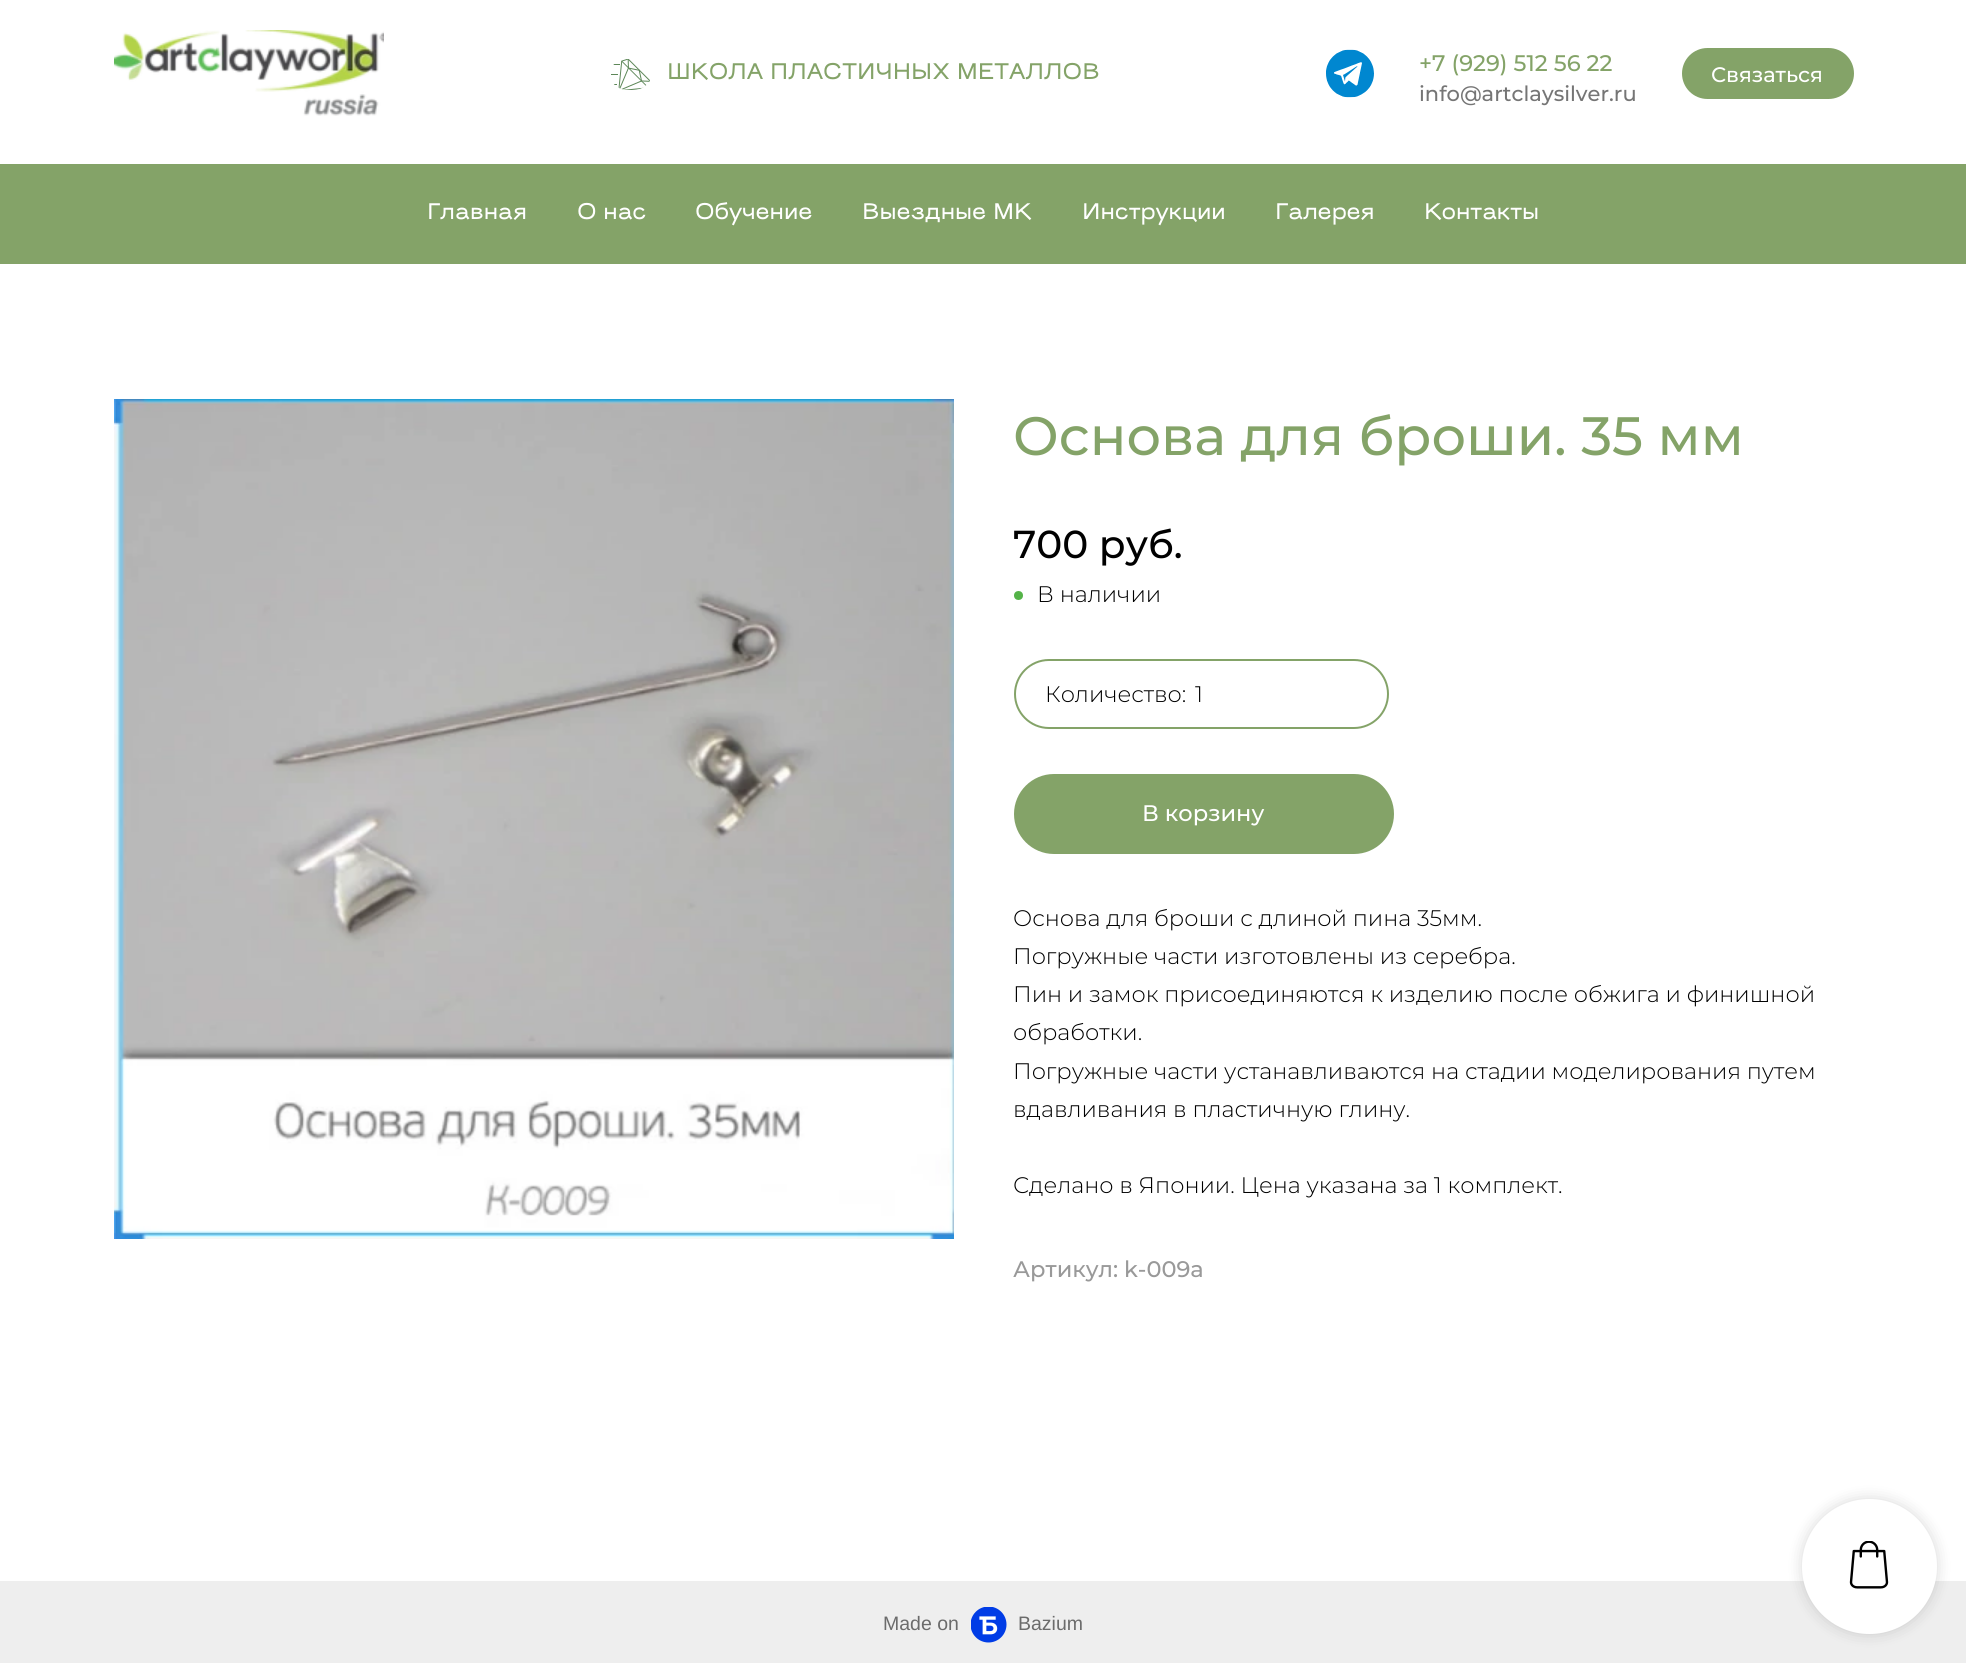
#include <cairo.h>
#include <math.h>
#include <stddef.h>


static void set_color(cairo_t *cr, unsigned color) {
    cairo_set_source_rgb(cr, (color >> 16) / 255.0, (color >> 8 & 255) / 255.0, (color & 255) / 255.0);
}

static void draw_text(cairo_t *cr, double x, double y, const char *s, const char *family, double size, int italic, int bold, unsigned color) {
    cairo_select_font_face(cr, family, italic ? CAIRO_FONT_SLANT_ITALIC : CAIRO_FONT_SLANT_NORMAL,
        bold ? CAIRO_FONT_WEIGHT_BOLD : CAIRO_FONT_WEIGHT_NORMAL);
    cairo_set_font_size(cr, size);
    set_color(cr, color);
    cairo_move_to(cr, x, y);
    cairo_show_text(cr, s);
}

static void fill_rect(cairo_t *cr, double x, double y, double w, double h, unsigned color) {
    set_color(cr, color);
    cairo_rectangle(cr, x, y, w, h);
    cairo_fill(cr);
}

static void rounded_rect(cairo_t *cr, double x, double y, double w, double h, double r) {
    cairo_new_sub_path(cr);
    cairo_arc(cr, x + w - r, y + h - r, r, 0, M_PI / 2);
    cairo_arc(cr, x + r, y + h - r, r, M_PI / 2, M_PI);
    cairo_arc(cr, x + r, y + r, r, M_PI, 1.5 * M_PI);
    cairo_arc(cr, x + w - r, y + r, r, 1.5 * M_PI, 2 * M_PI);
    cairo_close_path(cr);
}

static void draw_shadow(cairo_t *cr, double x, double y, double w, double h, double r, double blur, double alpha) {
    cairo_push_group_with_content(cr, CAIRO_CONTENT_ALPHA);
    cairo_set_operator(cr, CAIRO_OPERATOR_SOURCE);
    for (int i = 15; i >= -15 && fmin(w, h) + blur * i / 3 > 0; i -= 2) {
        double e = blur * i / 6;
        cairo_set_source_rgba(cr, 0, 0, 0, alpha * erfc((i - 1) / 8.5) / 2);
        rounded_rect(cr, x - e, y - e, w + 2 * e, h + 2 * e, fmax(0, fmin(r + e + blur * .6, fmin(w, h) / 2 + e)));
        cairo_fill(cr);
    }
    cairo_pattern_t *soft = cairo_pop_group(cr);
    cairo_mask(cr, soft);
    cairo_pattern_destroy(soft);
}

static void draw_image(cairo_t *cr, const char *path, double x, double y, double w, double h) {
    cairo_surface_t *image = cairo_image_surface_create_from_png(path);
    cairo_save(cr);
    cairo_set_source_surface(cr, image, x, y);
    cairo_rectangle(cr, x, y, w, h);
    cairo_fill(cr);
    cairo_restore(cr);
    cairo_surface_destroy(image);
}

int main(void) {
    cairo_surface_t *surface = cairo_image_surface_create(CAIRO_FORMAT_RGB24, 1966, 1663);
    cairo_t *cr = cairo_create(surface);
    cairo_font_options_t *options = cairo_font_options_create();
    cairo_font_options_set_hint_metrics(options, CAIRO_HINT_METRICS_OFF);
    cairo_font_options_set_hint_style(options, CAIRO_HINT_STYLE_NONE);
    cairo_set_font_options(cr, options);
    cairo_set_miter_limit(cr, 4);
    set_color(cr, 0xFFFFFF);
    cairo_paint(cr);
    draw_image(cr, "assets/img1.png", 114, 30, 270, 86);
    draw_image(cr, "assets/img2.png", 611, 59, 39, 31);
    draw_text(cr, 667, 79, "ШКОЛА ПЛАСТИЧНЫХ МЕТАЛЛОВ", "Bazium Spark", 22.5, 0, 0, 0x84A368);
    draw_image(cr, "assets/img3.png", 1326, 49, 48, 49);
    draw_text(cr, 1419, 71, "+7 (929) 512 56 22", "Montserrat Medium", 22.5, 0, 0, 0x84A368);
    draw_text(cr, 1419, 101, "info@artclaysilver.ru", "Montserrat Medium", 21, 0, 0, 0x757575);
    set_color(cr, 0x84A368);
    rounded_rect(cr, 1682, 48, 172, 51, 25.5);
    cairo_fill(cr);
    draw_text(cr, 1711, 82, "Связаться", "Montserrat Medium", 21, 0, 0, 0xFFFFFF);
    fill_rect(cr, 0, 164, 1966, 100, 0x84A368);
    draw_text(cr, 427, 219, "Главная", "Bazium Spark", 22.5, 0, 0, 0xFFFFFF);
    draw_text(cr, 577, 219, "О нас", "Bazium Spark", 22.5, 0, 0, 0xFFFFFF);
    draw_text(cr, 695, 219, "Обучение", "Bazium Spark", 22.5, 0, 0, 0xFFFFFF);
    draw_text(cr, 862, 219, "Выездные МК", "Bazium Spark", 22.5, 0, 0, 0xFFFFFF);
    draw_text(cr, 1082, 219, "Инструкции", "Bazium Spark", 22.5, 0, 0, 0xFFFFFF);
    draw_text(cr, 1275, 219, "Галерея", "Bazium Spark", 22.5, 0, 0, 0xFFFFFF);
    draw_text(cr, 1424, 219, "Контакты", "Bazium Spark", 22.5, 0, 0, 0xFFFFFF);
    draw_image(cr, "assets/img4.png", 114, 399, 840, 840);
    draw_text(cr, 1013, 455, "Основа для броши. 35 мм", "Montserrat Medium", 54, 0, 0, 0x84A368);
    draw_text(cr, 1013, 558, "700 руб.", "Montserrat Medium", 39, 0, 0, 0x000000);
    set_color(cr, 0x54B348);
    cairo_new_path(cr);
    cairo_arc(cr, 1018.5, 595.5, 4.5, 0, 2 * M_PI);
    cairo_fill(cr);
    draw_text(cr, 1037, 602, "В наличии", "Montserrat Light", 22.5, 0, 0, 0x000000);
    rounded_rect(cr, 1015, 660, 373, 68, 34);
    set_color(cr, 0x84A368);
    cairo_stroke(cr);
    draw_text(cr, 1045, 702, "Количество:", "Montserrat Light", 22.5, 0, 0, 0x000000);
    draw_text(cr, 1195, 702, "1", "Montserrat Light", 22.5, 0, 0, 0x000000);
    set_color(cr, 0x84A368);
    rounded_rect(cr, 1014, 774, 380, 80, 40);
    cairo_fill(cr);
    draw_text(cr, 1142, 821, "В корзину", "Montserrat Medium", 22.5, 0, 0, 0xFFFFFF);
    draw_text(cr, 1013, 926, "Основа для броши с длиной пина 35мм.", "Montserrat Light", 22.5, 0, 0, 0x000000);
    draw_text(cr, 1013, 964, "Погружные части изготовлены из серебра.", "Montserrat Light", 22.5, 0, 0, 0x000000);
    draw_text(cr, 1013, 1002, "Пин и замок присоединяются к изделию после обжига и финишной", "Montserrat Light", 22.5, 0, 0, 0x000000);
    draw_text(cr, 1013, 1040, "обработки.", "Montserrat Light", 22.5, 0, 0, 0x000000);
    draw_text(cr, 1013, 1079, "Погружные части устанавливаются на стадии моделирования путем", "Montserrat Light", 22.5, 0, 0, 0x000000);
    draw_text(cr, 1013, 1117, "вдавливания в пластичную глину.", "Montserrat Light", 22.5, 0, 0, 0x000000);
    draw_text(cr, 1013, 1193, "Сделано в Японии. Цена указана за 1 комплект.", "Montserrat Light", 22.5, 0, 0, 0x000000);
    draw_text(cr, 1013, 1277, "Артикул:", "Montserrat Medium", 22.5, 0, 0, 0x999999);
    draw_text(cr, 1124, 1277, "k-009a", "Montserrat Medium", 22.5, 0, 0, 0x999999);
    fill_rect(cr, 0, 1581, 1966, 82, 0xEEEEEE);
    draw_text(cr, 883, 1630, "Made on", "Liberation Sans", 19.5, 0, 0, 0x6B6B6B);
    draw_image(cr, "assets/img5.png", 971, 1607, 36, 36);
    draw_text(cr, 1018, 1630, "Bazium", "Liberation Sans", 19.5, 0, 0, 0x6B6B6B);
    set_color(cr, 0x000000);
    draw_shadow(cr, 1802, 1499, 135, 135, 67.5, 7.5, 0.15);
    set_color(cr, 0xFFFFFF);
    cairo_arc(cr, 1869.5, 1566.5, 67.5, 0, 2 * M_PI);
    cairo_fill(cr);
    draw_image(cr, "assets/img6.png", 1849, 1541, 40, 48);
    cairo_surface_write_to_png(surface, "output.png");
    cairo_font_options_destroy(options);
    cairo_destroy(cr);
    cairo_surface_destroy(surface);
    return 0;
}
